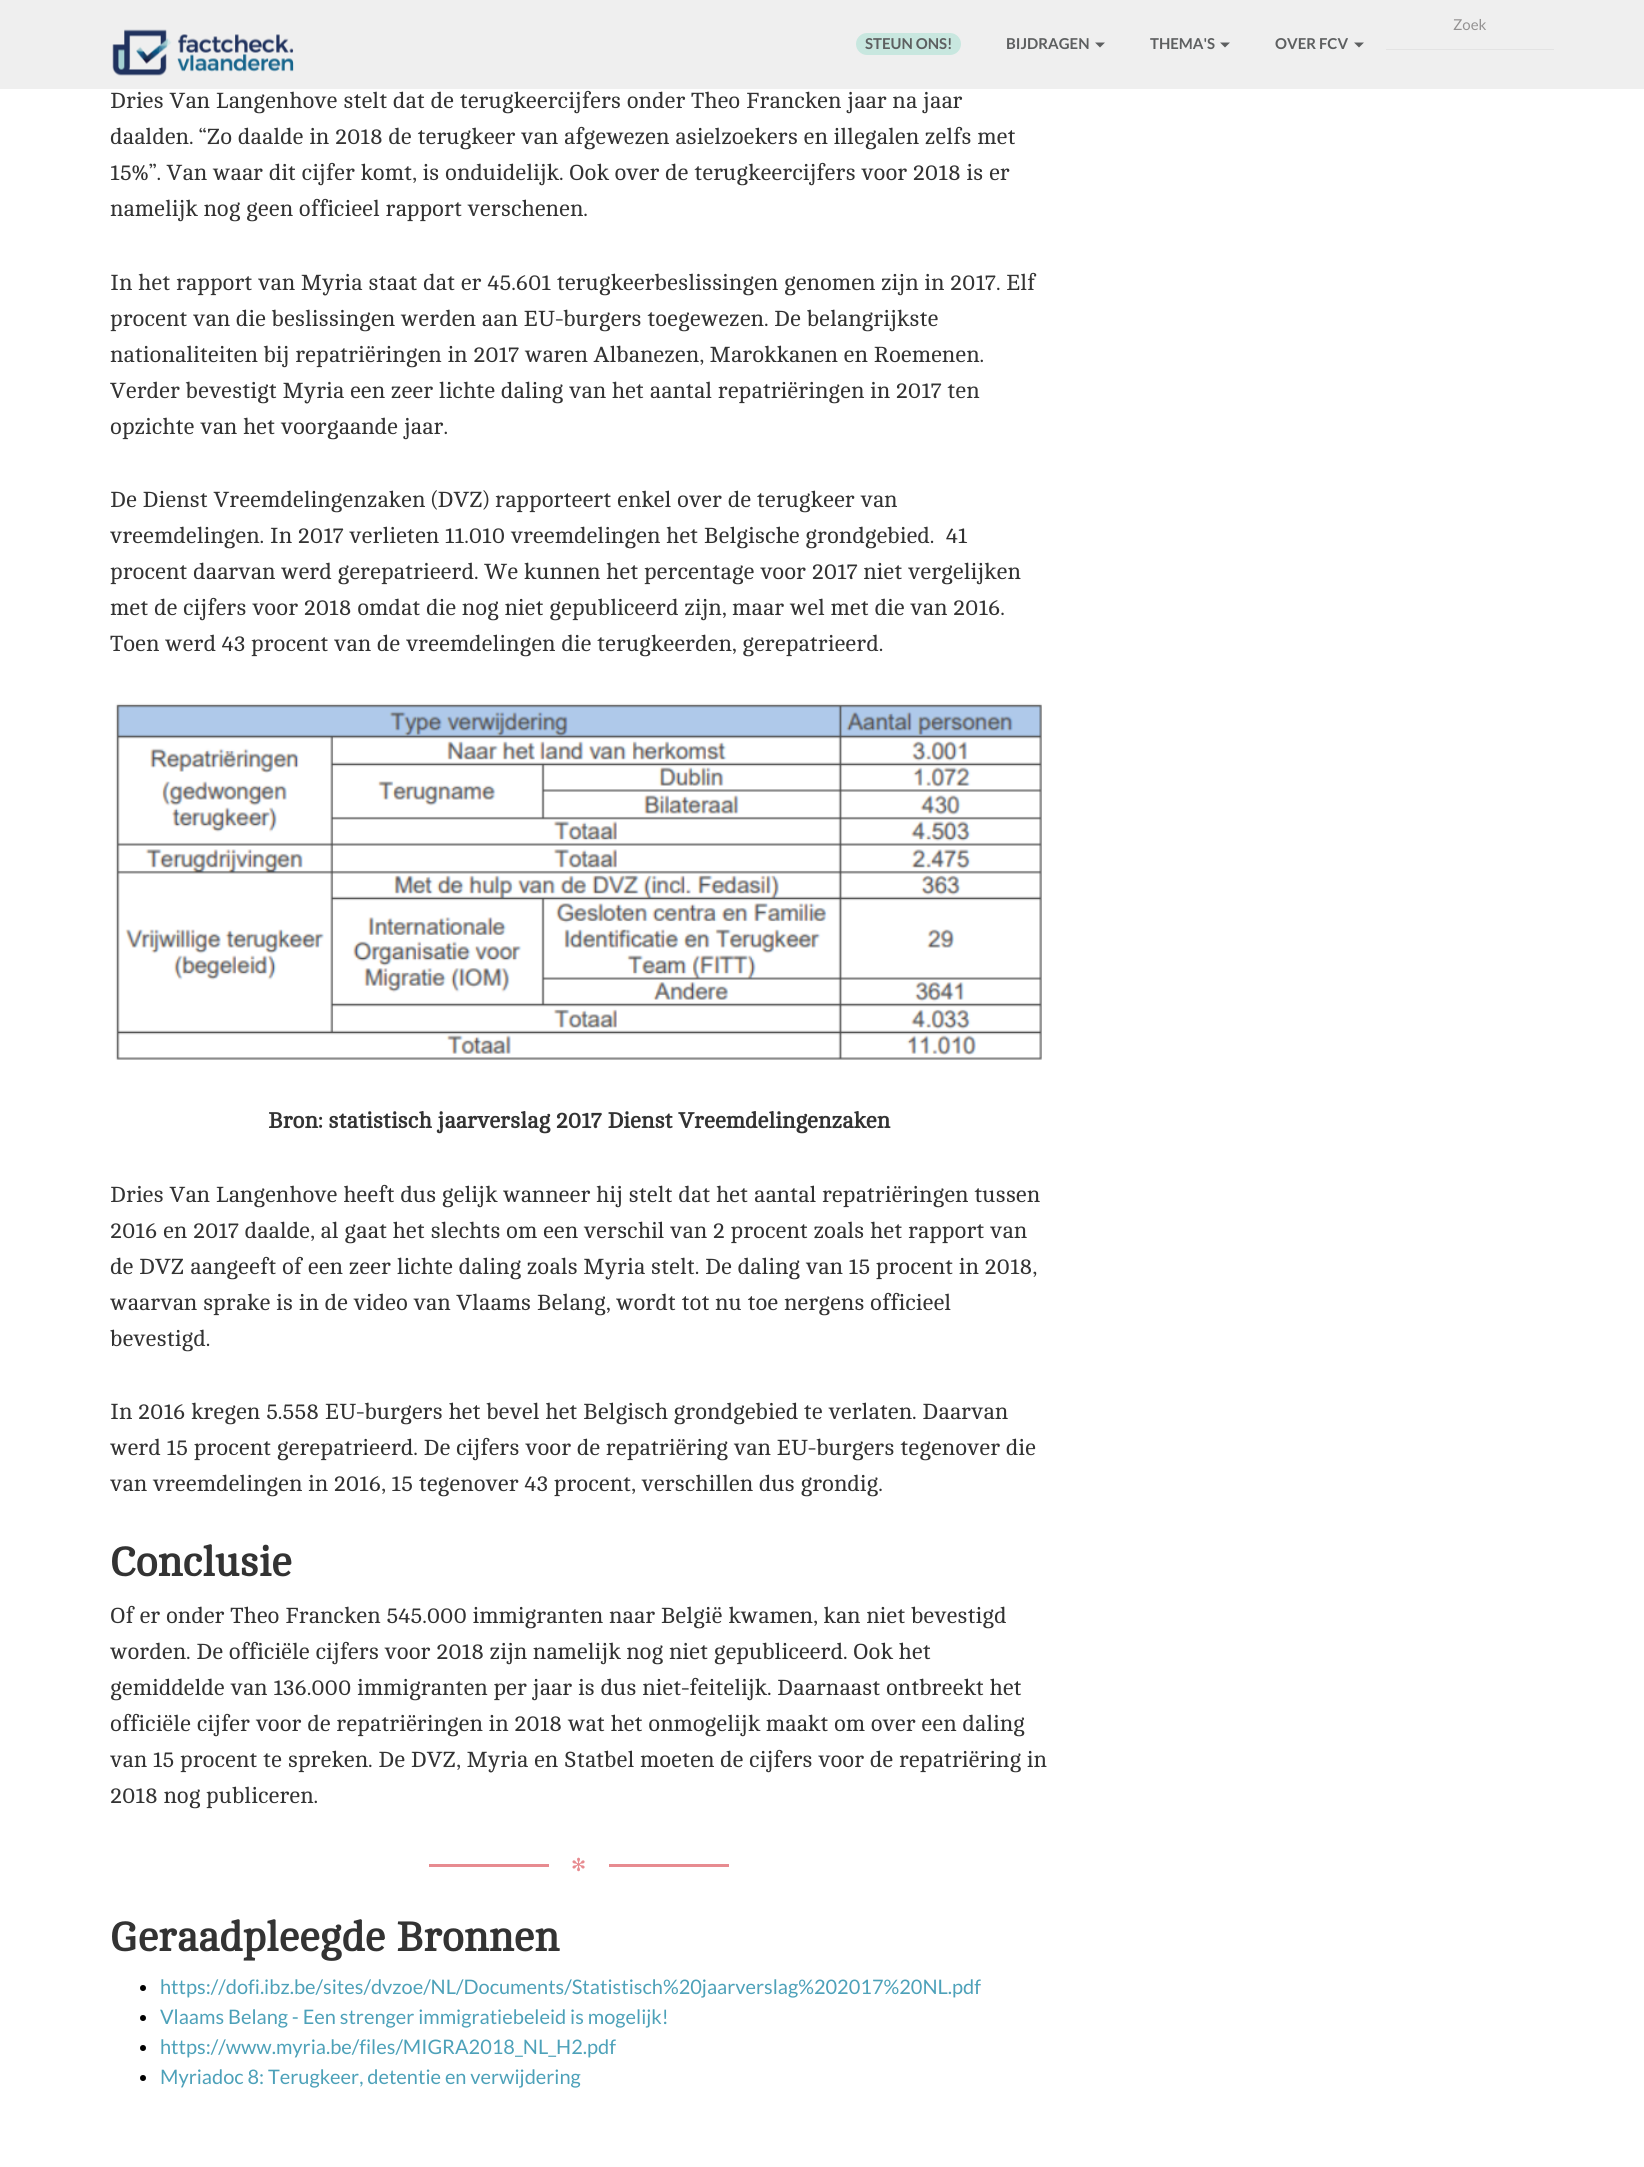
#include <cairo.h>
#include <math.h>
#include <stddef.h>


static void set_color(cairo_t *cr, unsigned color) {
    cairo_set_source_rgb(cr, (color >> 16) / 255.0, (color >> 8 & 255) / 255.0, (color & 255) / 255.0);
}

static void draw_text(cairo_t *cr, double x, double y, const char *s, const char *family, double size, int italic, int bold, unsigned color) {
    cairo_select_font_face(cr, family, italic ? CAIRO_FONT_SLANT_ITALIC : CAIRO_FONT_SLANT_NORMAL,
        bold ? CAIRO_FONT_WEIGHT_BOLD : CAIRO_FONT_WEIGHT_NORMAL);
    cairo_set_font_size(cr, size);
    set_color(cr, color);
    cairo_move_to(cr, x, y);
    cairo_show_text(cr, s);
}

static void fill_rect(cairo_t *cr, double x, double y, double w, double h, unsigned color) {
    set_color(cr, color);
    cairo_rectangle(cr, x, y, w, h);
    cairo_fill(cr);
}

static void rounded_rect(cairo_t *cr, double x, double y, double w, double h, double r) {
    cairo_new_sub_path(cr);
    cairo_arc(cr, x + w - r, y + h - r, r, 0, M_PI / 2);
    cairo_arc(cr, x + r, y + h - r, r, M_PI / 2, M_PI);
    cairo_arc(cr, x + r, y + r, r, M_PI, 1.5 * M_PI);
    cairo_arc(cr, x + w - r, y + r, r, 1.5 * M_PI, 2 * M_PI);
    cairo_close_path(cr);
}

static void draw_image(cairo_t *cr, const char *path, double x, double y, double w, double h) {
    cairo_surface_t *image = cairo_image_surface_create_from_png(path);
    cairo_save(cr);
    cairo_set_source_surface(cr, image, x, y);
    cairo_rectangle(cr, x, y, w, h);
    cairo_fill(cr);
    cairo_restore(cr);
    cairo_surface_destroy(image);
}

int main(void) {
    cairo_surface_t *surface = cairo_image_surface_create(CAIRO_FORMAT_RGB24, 1644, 2167);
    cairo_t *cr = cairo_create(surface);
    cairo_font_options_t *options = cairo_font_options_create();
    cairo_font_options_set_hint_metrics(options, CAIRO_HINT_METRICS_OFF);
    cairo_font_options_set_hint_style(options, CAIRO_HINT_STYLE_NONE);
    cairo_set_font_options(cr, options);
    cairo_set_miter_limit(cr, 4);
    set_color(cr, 0xFFFFFF);
    cairo_paint(cr);
    fill_rect(cr, 0, 0, 1644, 89, 0xEFEFEF);
    draw_image(cr, "assets/img1.png", 112, 29, 182, 47);
    fill_rect(cr, 1386, 49, 168, 1, 0xE3E3E3);
    draw_text(cr, 1453, 30, "Zoek", "Lato", 15, 0, 0, 0x939191);
    set_color(cr, 0xC8E7DF);
    rounded_rect(cr, 856, 33, 105, 22, 11);
    cairo_fill(cr);
    draw_text(cr, 865, 49, "STEUN ONS!", "Lato", 15, 0, 1, 0x5D5F60);
    draw_text(cr, 1006, 49, "BIJDRAGEN", "Lato", 15, 0, 1, 0x5D5F60);
    cairo_new_path(cr);
    cairo_move_to(cr, 1095, 42.5);
    cairo_line_to(cr, 1105, 42.5);
    cairo_line_to(cr, 1100, 47.5);
    cairo_close_path(cr);
    cairo_fill(cr);
    draw_text(cr, 1150, 49, "THEMA'S", "Lato", 15, 0, 1, 0x5D5F60);
    cairo_new_path(cr);
    cairo_move_to(cr, 1220, 42.5);
    cairo_line_to(cr, 1230, 42.5);
    cairo_line_to(cr, 1225, 47.5);
    cairo_close_path(cr);
    cairo_fill(cr);
    draw_text(cr, 1275, 49, "OVER FCV", "Lato", 15, 0, 1, 0x5D5F60);
    cairo_new_path(cr);
    cairo_move_to(cr, 1354, 42.5);
    cairo_line_to(cr, 1364, 42.5);
    cairo_line_to(cr, 1359, 47.5);
    cairo_close_path(cr);
    cairo_fill(cr);
    draw_text(cr, 110, 108, "Dries Van Langenhove stelt dat de terugkeercijfers onder Theo Francken jaar na jaar", "Cambo", 22.5, 0, 0, 0x333333);
    draw_text(cr, 110, 144, "daalden. “Zo daalde in 2018 de terugkeer van afgewezen asielzoekers en illegalen zelfs met", "Cambo", 22.5, 0, 0, 0x333333);
    draw_text(cr, 110, 180, "15%”. Van waar dit cijfer komt, is onduidelijk. Ook over de terugkeercijfers voor 2018 is er", "Cambo", 22.5, 0, 0, 0x333333);
    draw_text(cr, 110, 216, "namelijk nog geen officieel rapport verschenen.", "Cambo", 22.5, 0, 0, 0x333333);
    draw_text(cr, 110, 290, "In het rapport van Myria staat dat er 45.601 terugkeerbeslissingen genomen zijn in 2017. Elf", "Cambo", 22.5, 0, 0, 0x333333);
    draw_text(cr, 110, 326, "procent van die beslissingen werden aan EU-burgers toegewezen. De belangrijkste", "Cambo", 22.5, 0, 0, 0x333333);
    draw_text(cr, 110, 362, "nationaliteiten bij repatriëringen in 2017 waren Albanezen, Marokkanen en Roemenen.", "Cambo", 22.5, 0, 0, 0x333333);
    draw_text(cr, 110, 398, "Verder bevestigt Myria een zeer lichte daling van het aantal repatriëringen in 2017 ten", "Cambo", 22.5, 0, 0, 0x333333);
    draw_text(cr, 110, 434, "opzichte van het voorgaande jaar.", "Cambo", 22.5, 0, 0, 0x333333);
    draw_text(cr, 110, 507, "De Dienst Vreemdelingenzaken (DVZ) rapporteert enkel over de terugkeer van", "Cambo", 22.5, 0, 0, 0x333333);
    draw_text(cr, 110, 543, "vreemdelingen. In 2017 verlieten 11.010 vreemdelingen het Belgische grondgebied.  41", "Cambo", 22.5, 0, 0, 0x333333);
    draw_text(cr, 110, 579, "procent daarvan werd gerepatrieerd. We kunnen het percentage voor 2017 niet vergelijken", "Cambo", 22.5, 0, 0, 0x333333);
    draw_text(cr, 110, 615, "met de cijfers voor 2018 omdat die nog niet gepubliceerd zijn, maar wel met die van 2016.", "Cambo", 22.5, 0, 0, 0x333333);
    draw_text(cr, 110, 651, "Toen werd 43 procent van de vreemdelingen die terugkeerden, gerepatrieerd.", "Cambo", 22.5, 0, 0, 0x333333);
    draw_image(cr, "assets/img2.png", 115, 703, 927, 357);
    draw_text(cr, 268, 1128, "Bron: statistisch jaarverslag 2017 Dienst Vreemdelingenzaken", "Cambo", 22.5, 0, 1, 0x333333);
    draw_text(cr, 110, 1202, "Dries Van Langenhove heeft dus gelijk wanneer hij stelt dat het aantal repatriëringen tussen", "Cambo", 22.5, 0, 0, 0x333333);
    draw_text(cr, 110, 1238, "2016 en 2017 daalde, al gaat het slechts om een verschil van 2 procent zoals het rapport van", "Cambo", 22.5, 0, 0, 0x333333);
    draw_text(cr, 110, 1274, "de DVZ aangeeft of een zeer lichte daling zoals Myria stelt. De daling van 15 procent in 2018,", "Cambo", 22.5, 0, 0, 0x333333);
    draw_text(cr, 110, 1310, "waarvan sprake is in de video van Vlaams Belang, wordt tot nu toe nergens officieel", "Cambo", 22.5, 0, 0, 0x333333);
    draw_text(cr, 110, 1346, "bevestigd.", "Cambo", 22.5, 0, 0, 0x333333);
    draw_text(cr, 110, 1419, "In 2016 kregen 5.558 EU-burgers het bevel het Belgisch grondgebied te verlaten. Daarvan", "Cambo", 22.5, 0, 0, 0x333333);
    draw_text(cr, 110, 1455, "werd 15 procent gerepatrieerd. De cijfers voor de repatriëring van EU-burgers tegenover die", "Cambo", 22.5, 0, 0, 0x333333);
    draw_text(cr, 110, 1491, "van vreemdelingen in 2016, 15 tegenover 43 procent, verschillen dus grondig.", "Cambo", 22.5, 0, 0, 0x333333);
    draw_text(cr, 110, 1576, "Conclusie", "Cambo", 42, 0, 1, 0x333333);
    draw_text(cr, 110, 1623, "Of er onder Theo Francken 545.000 immigranten naar België kwamen, kan niet bevestigd", "Cambo", 22.5, 0, 0, 0x333333);
    draw_text(cr, 110, 1659, "worden. De officiële cijfers voor 2018 zijn namelijk nog niet gepubliceerd. Ook het", "Cambo", 22.5, 0, 0, 0x333333);
    draw_text(cr, 110, 1695, "gemiddelde van 136.000 immigranten per jaar is dus niet-feitelijk. Daarnaast ontbreekt het", "Cambo", 22.5, 0, 0, 0x333333);
    draw_text(cr, 110, 1731, "officiële cijfer voor de repatriëringen in 2018 wat het onmogelijk maakt om over een daling", "Cambo", 22.5, 0, 0, 0x333333);
    draw_text(cr, 110, 1767, "van 15 procent te spreken. De DVZ, Myria en Statbel moeten de cijfers voor de repatriëring in", "Cambo", 22.5, 0, 0, 0x333333);
    draw_text(cr, 110, 1803, "2018 nog publiceren.", "Cambo", 22.5, 0, 0, 0x333333);
    fill_rect(cr, 429, 1864, 120, 3, 0xE78B90);
    draw_text(cr, 571, 1871, "✻", "DejaVu Sans", 18, 0, 0, 0xE78B90);
    fill_rect(cr, 609, 1864, 120, 3, 0xE78B90);
    draw_text(cr, 110, 1951, "Geraadpleegde Bronnen", "Cambo", 42, 0, 1, 0x333333);
    set_color(cr, 0x000000);
    cairo_new_path(cr);
    cairo_arc(cr, 143, 1988, 3, 0, 2 * M_PI);
    cairo_fill(cr);
    draw_text(cr, 160, 1994, "https://dofi.ibz.be/sites/dvzoe/NL/Documents/Statistisch%20jaarverslag%202017%20NL.pdf", "Lato", 20, 0, 0, 0x4DA1B9);
    set_color(cr, 0x000000);
    cairo_new_path(cr);
    cairo_arc(cr, 143, 2018, 3, 0, 2 * M_PI);
    cairo_fill(cr);
    draw_text(cr, 160, 2024, "Vlaams Belang - Een strenger immigratiebeleid is mogelijk!", "Lato", 20, 0, 0, 0x4DA1B9);
    set_color(cr, 0x000000);
    cairo_new_path(cr);
    cairo_arc(cr, 143, 2048, 3, 0, 2 * M_PI);
    cairo_fill(cr);
    draw_text(cr, 160, 2054, "https://www.myria.be/files/MIGRA2018_NL_H2.pdf", "Lato", 20, 0, 0, 0x4DA1B9);
    set_color(cr, 0x000000);
    cairo_new_path(cr);
    cairo_arc(cr, 143, 2078, 3, 0, 2 * M_PI);
    cairo_fill(cr);
    draw_text(cr, 160, 2084, "Myriadoc 8: Terugkeer, detentie en verwijdering", "Lato", 20, 0, 0, 0x4DA1B9);
    cairo_surface_write_to_png(surface, "output.png");
    cairo_font_options_destroy(options);
    cairo_destroy(cr);
    cairo_surface_destroy(surface);
    return 0;
}
